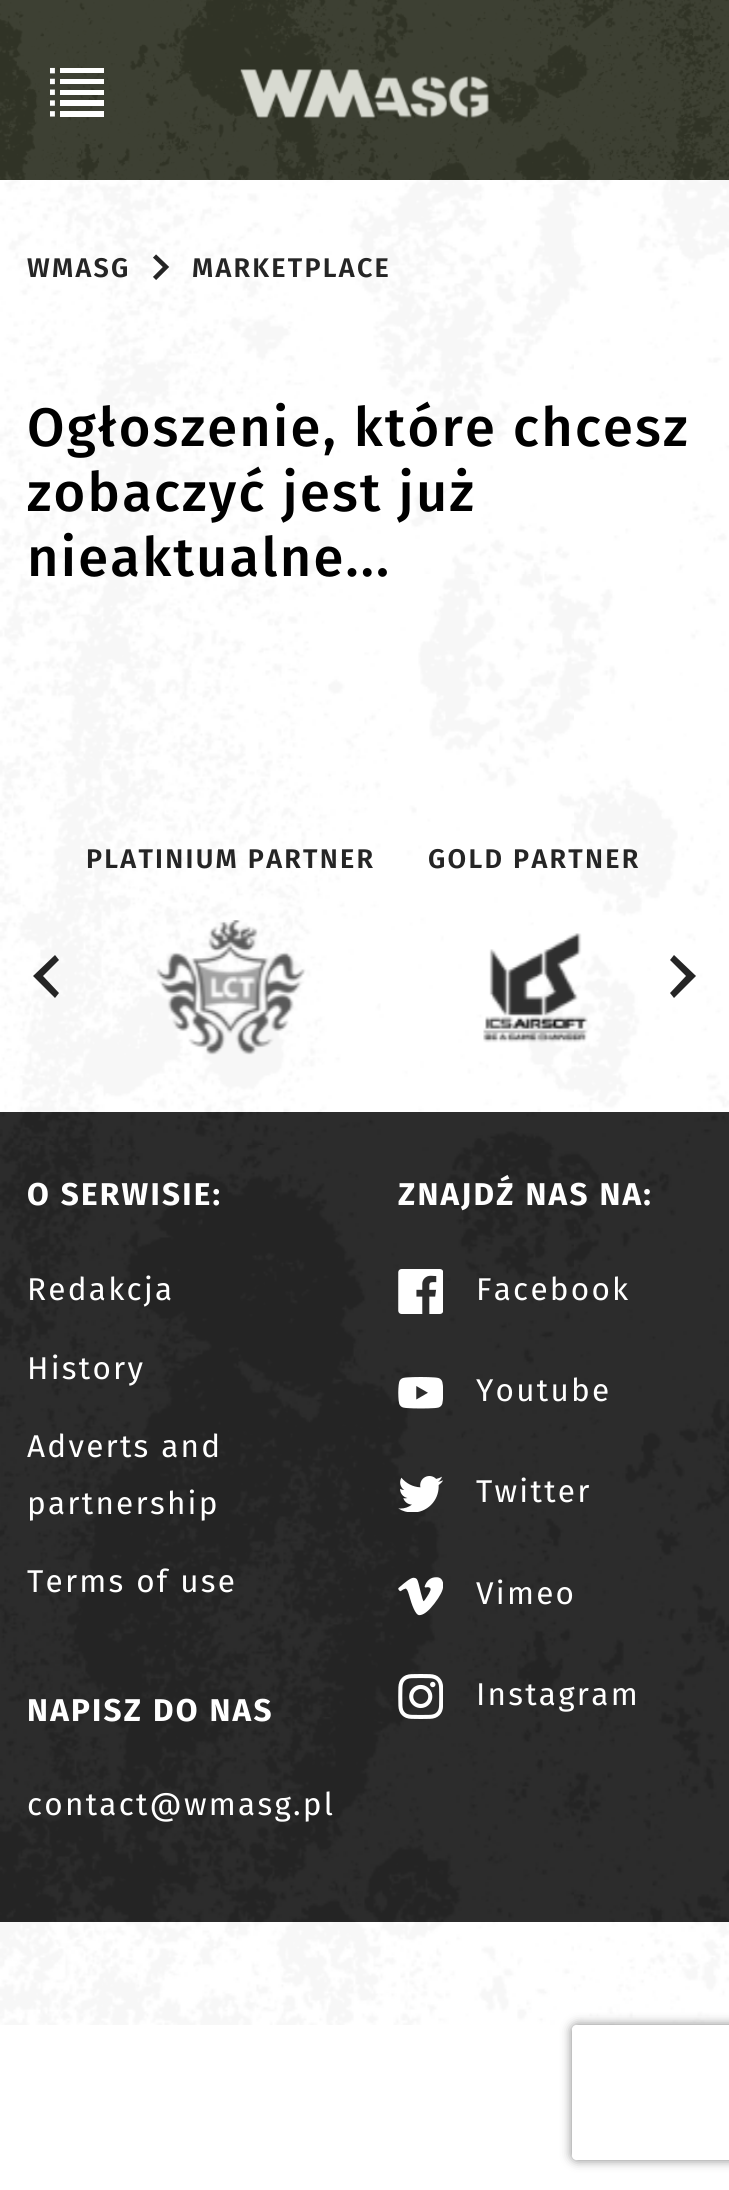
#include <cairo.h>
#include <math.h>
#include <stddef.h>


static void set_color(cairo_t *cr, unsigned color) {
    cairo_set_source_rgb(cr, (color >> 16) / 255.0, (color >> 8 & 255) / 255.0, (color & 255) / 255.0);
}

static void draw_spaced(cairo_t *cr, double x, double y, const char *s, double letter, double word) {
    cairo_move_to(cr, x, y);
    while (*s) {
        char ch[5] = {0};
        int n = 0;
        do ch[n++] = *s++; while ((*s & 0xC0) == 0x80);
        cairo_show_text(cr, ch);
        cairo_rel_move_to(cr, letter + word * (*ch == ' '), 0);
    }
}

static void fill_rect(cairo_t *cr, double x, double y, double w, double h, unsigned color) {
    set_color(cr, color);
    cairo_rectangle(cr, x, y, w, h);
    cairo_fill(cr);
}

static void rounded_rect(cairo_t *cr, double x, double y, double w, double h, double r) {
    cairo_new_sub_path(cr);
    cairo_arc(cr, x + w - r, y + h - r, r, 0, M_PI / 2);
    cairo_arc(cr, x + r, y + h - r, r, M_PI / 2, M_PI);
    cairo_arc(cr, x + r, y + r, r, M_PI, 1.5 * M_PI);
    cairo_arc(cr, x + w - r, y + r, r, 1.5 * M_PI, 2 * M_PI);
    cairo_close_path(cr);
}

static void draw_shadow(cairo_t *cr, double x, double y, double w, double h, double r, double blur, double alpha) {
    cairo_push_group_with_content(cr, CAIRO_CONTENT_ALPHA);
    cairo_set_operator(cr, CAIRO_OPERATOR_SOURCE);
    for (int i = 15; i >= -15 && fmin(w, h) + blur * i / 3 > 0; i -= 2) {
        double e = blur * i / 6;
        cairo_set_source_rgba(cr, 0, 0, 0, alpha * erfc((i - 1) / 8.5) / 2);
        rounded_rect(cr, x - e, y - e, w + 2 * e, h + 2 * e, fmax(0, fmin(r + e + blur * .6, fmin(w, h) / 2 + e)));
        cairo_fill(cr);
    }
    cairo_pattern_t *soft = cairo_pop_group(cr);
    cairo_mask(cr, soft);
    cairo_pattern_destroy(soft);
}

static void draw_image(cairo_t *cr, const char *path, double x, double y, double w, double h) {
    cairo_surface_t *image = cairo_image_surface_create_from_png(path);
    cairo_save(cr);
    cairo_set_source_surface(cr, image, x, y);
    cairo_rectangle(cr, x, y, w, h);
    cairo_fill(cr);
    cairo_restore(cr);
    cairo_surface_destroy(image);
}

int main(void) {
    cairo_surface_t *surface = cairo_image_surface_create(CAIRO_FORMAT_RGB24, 729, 2190);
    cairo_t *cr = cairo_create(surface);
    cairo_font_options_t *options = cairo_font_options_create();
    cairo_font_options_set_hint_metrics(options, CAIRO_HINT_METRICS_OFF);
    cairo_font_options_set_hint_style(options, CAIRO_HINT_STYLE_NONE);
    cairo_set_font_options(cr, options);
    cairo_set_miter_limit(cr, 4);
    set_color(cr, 0xFFFFFF);
    cairo_paint(cr);
    draw_image(cr, "assets/img1.png", 0, 0, 729, 180);
    draw_image(cr, "assets/img2.png", 50, 67, 54, 50);
    draw_image(cr, "assets/img3.png", 240, 69, 249, 49);
    fill_rect(cr, 0, 1112, 729, 810, 0x252525);
    draw_image(cr, "assets/img4.png", 0, 180, 729, 1845);
    cairo_select_font_face(cr, "Fira Sans SemiBold", CAIRO_FONT_SLANT_NORMAL, CAIRO_FONT_WEIGHT_NORMAL);
    cairo_set_font_size(cr, 27);
    draw_spaced(cr, 27, 277, "WMASG", 2.25, 0);
    cairo_new_path(cr);
    cairo_move_to(cr, 154.5, 256);
    cairo_line_to(cr, 166, 267);
    cairo_line_to(cr, 154.5, 278.5);
    cairo_set_line_width(cr, 4.5);
    cairo_stroke(cr);
    draw_spaced(cr, 192, 277, "MARKETPLACE", 2.25, 0);
    cairo_select_font_face(cr, "Fira Sans Medium", CAIRO_FONT_SLANT_NORMAL, CAIRO_FONT_WEIGHT_NORMAL);
    cairo_set_font_size(cr, 54.25);
    set_color(cr, 0x000000);
    draw_spaced(cr, 27, 446, "Ogłoszenie, które chcesz", 2.25, 0);
    draw_spaced(cr, 27, 511, "zobaczyć jest już", 2.25, 0);
    draw_spaced(cr, 27, 576, "nieaktualne...", 2.25, 0);
    cairo_select_font_face(cr, "Fira Sans SemiBold", CAIRO_FONT_SLANT_NORMAL, CAIRO_FONT_WEIGHT_NORMAL);
    cairo_set_font_size(cr, 27);
    set_color(cr, 0x252525);
    draw_spaced(cr, 86, 868, "PLATINIUM PARTNER", 2.25, 0);
    draw_image(cr, "assets/img5.png", 156, 920, 150, 135);
    draw_spaced(cr, 428, 868, "GOLD PARTNER", 2.25, 0);
    draw_image(cr, "assets/img6.png", 483, 933, 105, 110);
    cairo_new_path(cr);
    cairo_move_to(cr, 55, 955);
    cairo_line_to(cr, 59, 960);
    cairo_line_to(cr, 43, 976);
    cairo_line_to(cr, 59, 993);
    cairo_line_to(cr, 55, 998);
    cairo_line_to(cr, 33, 976);
    cairo_close_path(cr);
    cairo_fill(cr);
    cairo_new_path(cr);
    cairo_move_to(cr, 674, 955);
    cairo_line_to(cr, 670, 960);
    cairo_line_to(cr, 686, 976);
    cairo_line_to(cr, 670, 993);
    cairo_line_to(cr, 674, 998);
    cairo_line_to(cr, 696, 976);
    cairo_close_path(cr);
    cairo_fill(cr);
    cairo_select_font_face(cr, "Fira Sans", CAIRO_FONT_SLANT_NORMAL, CAIRO_FONT_WEIGHT_BOLD);
    cairo_set_font_size(cr, 31.5);
    set_color(cr, 0xFFFFFF);
    draw_spaced(cr, 27, 1205, "O SERWISIE:", 2.25, 0);
    cairo_select_font_face(cr, "Fira Sans", CAIRO_FONT_SLANT_NORMAL, CAIRO_FONT_WEIGHT_NORMAL);
    draw_spaced(cr, 27, 1300, "Redakcja", 2.25, 0);
    draw_spaced(cr, 27, 1379, "History", 2.25, 0);
    draw_spaced(cr, 27, 1457, "Adverts and", 2.25, 0);
    draw_spaced(cr, 27, 1514, "partnership", 2.25, 0);
    draw_spaced(cr, 27, 1592, "Terms of use", 2.25, 0);
    cairo_select_font_face(cr, "Fira Sans", CAIRO_FONT_SLANT_NORMAL, CAIRO_FONT_WEIGHT_BOLD);
    draw_spaced(cr, 398, 1205, "ZNAJDŹ NAS NA:", 2.25, 0);
    draw_image(cr, "assets/img7.png", 398, 1269, 45, 45);
    cairo_select_font_face(cr, "Fira Sans", CAIRO_FONT_SLANT_NORMAL, CAIRO_FONT_WEIGHT_NORMAL);
    draw_spaced(cr, 476, 1300, "Facebook", 2.25, 0);
    draw_image(cr, "assets/img8.png", 398, 1377, 45, 32);
    draw_spaced(cr, 476, 1401, "Youtube", 2.25, 0);
    draw_image(cr, "assets/img9.png", 398, 1476, 45, 36);
    draw_spaced(cr, 476, 1502, "Twitter", 2.25, 0);
    draw_image(cr, "assets/img10.png", 398, 1577, 45, 39);
    draw_spaced(cr, 476, 1604, "Vimeo", 2.25, 0);
    draw_image(cr, "assets/img11.png", 398, 1674, 45, 45);
    draw_spaced(cr, 476, 1705, "Instagram", 2.25, 0);
    cairo_select_font_face(cr, "Fira Sans", CAIRO_FONT_SLANT_NORMAL, CAIRO_FONT_WEIGHT_BOLD);
    draw_spaced(cr, 27, 1721, "NAPISZ DO NAS", 2.25, 0);
    cairo_select_font_face(cr, "Fira Sans", CAIRO_FONT_SLANT_NORMAL, CAIRO_FONT_WEIGHT_NORMAL);
    draw_spaced(cr, 27, 1815, "contact@wmasg.pl", 2.25, 0);
    cairo_save(cr);
    cairo_set_fill_rule(cr, CAIRO_FILL_RULE_EVEN_ODD);
    cairo_new_path(cr);
    cairo_move_to(cr, 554, 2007);
    cairo_line_to(cr, 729, 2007);
    cairo_line_to(cr, 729, 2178);
    cairo_line_to(cr, 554, 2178);
    cairo_close_path(cr);
    cairo_move_to(cr, 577, 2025);
    cairo_line_to(cr, 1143, 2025);
    cairo_curve_to(cr, 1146, 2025, 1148, 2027, 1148, 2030);
    cairo_line_to(cr, 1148, 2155);
    cairo_curve_to(cr, 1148, 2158, 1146, 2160, 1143, 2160);
    cairo_line_to(cr, 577, 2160);
    cairo_curve_to(cr, 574, 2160, 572, 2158, 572, 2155);
    cairo_line_to(cr, 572, 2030);
    cairo_curve_to(cr, 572, 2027, 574, 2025, 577, 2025);
    cairo_close_path(cr);
    cairo_clip(cr);
    set_color(cr, 0x808080);
    draw_shadow(cr, 572, 2025, 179, 135, 5, 5.5, 1);
    cairo_restore(cr);
    cairo_surface_write_to_png(surface, "output.png");
    cairo_font_options_destroy(options);
    cairo_destroy(cr);
    cairo_surface_destroy(surface);
    return 0;
}
